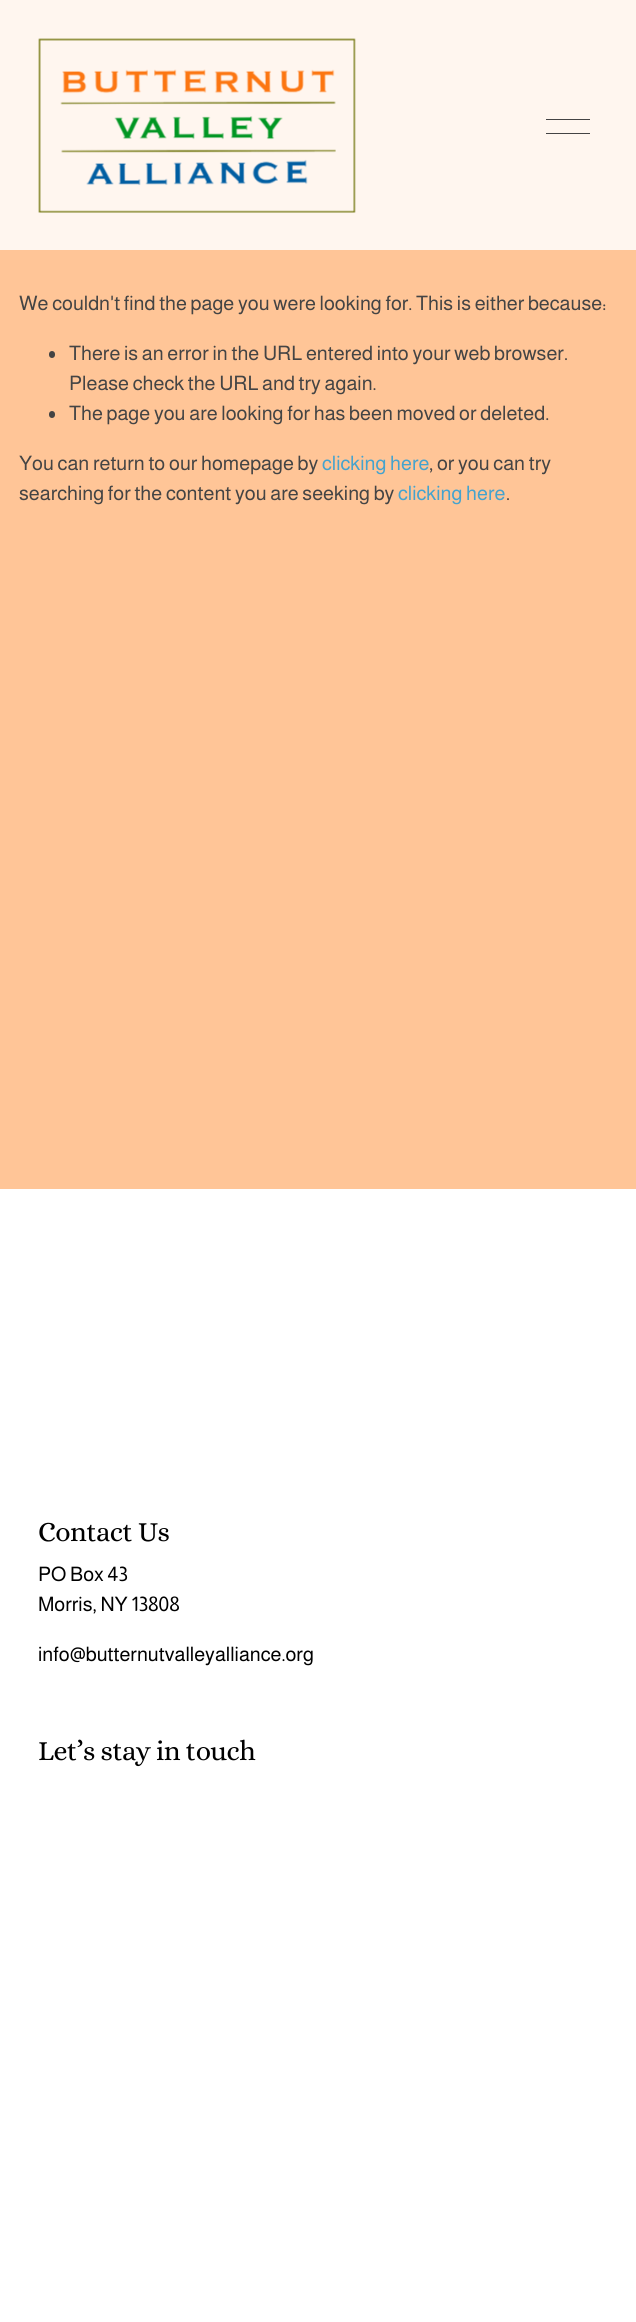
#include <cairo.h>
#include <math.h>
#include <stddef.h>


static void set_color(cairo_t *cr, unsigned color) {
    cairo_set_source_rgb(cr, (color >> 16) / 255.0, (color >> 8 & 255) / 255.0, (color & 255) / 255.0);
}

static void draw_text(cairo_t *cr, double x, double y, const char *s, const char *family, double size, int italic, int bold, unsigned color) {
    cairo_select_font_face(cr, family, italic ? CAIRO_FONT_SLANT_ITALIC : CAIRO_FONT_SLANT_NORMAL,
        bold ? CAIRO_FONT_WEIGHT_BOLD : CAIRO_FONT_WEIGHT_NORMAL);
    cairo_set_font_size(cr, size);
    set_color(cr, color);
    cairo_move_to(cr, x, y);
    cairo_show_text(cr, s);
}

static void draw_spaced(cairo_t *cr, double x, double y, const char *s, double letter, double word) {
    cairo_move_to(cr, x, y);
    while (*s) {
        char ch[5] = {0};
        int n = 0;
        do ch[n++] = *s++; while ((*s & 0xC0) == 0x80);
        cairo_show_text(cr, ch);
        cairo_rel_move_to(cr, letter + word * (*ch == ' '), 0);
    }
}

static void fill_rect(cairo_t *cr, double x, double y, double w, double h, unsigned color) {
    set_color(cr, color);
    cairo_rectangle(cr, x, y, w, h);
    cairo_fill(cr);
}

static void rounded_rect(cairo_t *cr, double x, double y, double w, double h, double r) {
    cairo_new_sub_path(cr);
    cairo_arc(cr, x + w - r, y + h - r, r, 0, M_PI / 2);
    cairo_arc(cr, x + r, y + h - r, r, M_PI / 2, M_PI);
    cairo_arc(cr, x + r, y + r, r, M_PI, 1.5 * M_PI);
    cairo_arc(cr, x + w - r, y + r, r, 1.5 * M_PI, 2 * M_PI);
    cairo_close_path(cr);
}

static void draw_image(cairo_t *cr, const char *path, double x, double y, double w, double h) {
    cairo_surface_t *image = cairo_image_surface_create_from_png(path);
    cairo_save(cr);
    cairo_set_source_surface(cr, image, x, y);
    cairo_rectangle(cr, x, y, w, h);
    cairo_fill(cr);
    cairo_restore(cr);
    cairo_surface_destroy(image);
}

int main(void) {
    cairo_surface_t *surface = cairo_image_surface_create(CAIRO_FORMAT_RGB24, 636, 2322);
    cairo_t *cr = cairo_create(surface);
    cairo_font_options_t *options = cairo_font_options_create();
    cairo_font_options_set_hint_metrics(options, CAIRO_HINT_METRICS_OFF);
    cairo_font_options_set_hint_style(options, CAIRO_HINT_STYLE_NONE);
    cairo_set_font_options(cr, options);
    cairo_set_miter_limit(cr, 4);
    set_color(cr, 0xFFC597);
    cairo_paint(cr);
    fill_rect(cr, 0, 0, 636, 250, 0xFFF6EF);
    draw_image(cr, "assets/img1.png", 38, 38, 318, 175);
    fill_rect(cr, 546, 119, 44, 1, 0x444444);
    fill_rect(cr, 546, 133, 44, 1, 0x444444);
    draw_text(cr, 19, 310, "We couldn't find the page you were looking for. This is either because:", "Almarai", 20, 0, 0, 0x444444);
    rounded_rect(cr, 49, 351, 6, 7, 3);
    cairo_fill(cr);
    draw_text(cr, 69, 360, "There is an error in the URL entered into your web browser.", "Almarai", 20, 0, 0, 0x444444);
    draw_text(cr, 69, 390, "Please check the URL and try again.", "Almarai", 20, 0, 0, 0x444444);
    rounded_rect(cr, 49, 411, 6, 7, 3);
    cairo_fill(cr);
    draw_text(cr, 69, 420, "The page you are looking for has been moved or deleted.", "Almarai", 20, 0, 0, 0x444444);
    draw_text(cr, 19, 470, "You can return to our homepage by", "Almarai", 20, 0, 0, 0x444444);
    draw_text(cr, 322, 470, "clicking here", "Almarai", 20, 0, 0, 0x45A3CE);
    draw_text(cr, 429, 470, ", or you can try", "Almarai", 20, 0, 0, 0x444444);
    draw_text(cr, 19, 500, "searching for the content you are seeking by", "Almarai", 20, 0, 0, 0x444444);
    draw_text(cr, 398, 500, "clicking here", "Almarai", 20, 0, 0, 0x45A3CE);
    draw_text(cr, 506, 500, ".", "Almarai", 20, 0, 0, 0x444444);
    fill_rect(cr, 0, 1189, 636, 1133, 0xFFFFFF);
    cairo_select_font_face(cr, "Alice", CAIRO_FONT_SLANT_NORMAL, CAIRO_FONT_WEIGHT_NORMAL);
    cairo_set_font_size(cr, 28);
    set_color(cr, 0x000000);
    draw_spaced(cr, 38, 1541, "Contact Us", -0.6, 0);
    draw_text(cr, 38, 1581, "PO Box 43", "Almarai", 20, 0, 0, 0x000000);
    draw_text(cr, 38, 1611, "Morris, NY 13808", "Almarai", 20, 0, 0, 0x000000);
    draw_text(cr, 38, 1661, "info@butternutvalleyalliance.org", "Almarai", 20, 0, 0, 0x000000);
    cairo_select_font_face(cr, "Alice", CAIRO_FONT_SLANT_NORMAL, CAIRO_FONT_WEIGHT_NORMAL);
    cairo_set_font_size(cr, 28);
    draw_spaced(cr, 38, 1760, "Let’s stay in touch", -0.6, 0);
    cairo_surface_write_to_png(surface, "output.png");
    cairo_font_options_destroy(options);
    cairo_destroy(cr);
    cairo_surface_destroy(surface);
    return 0;
}
